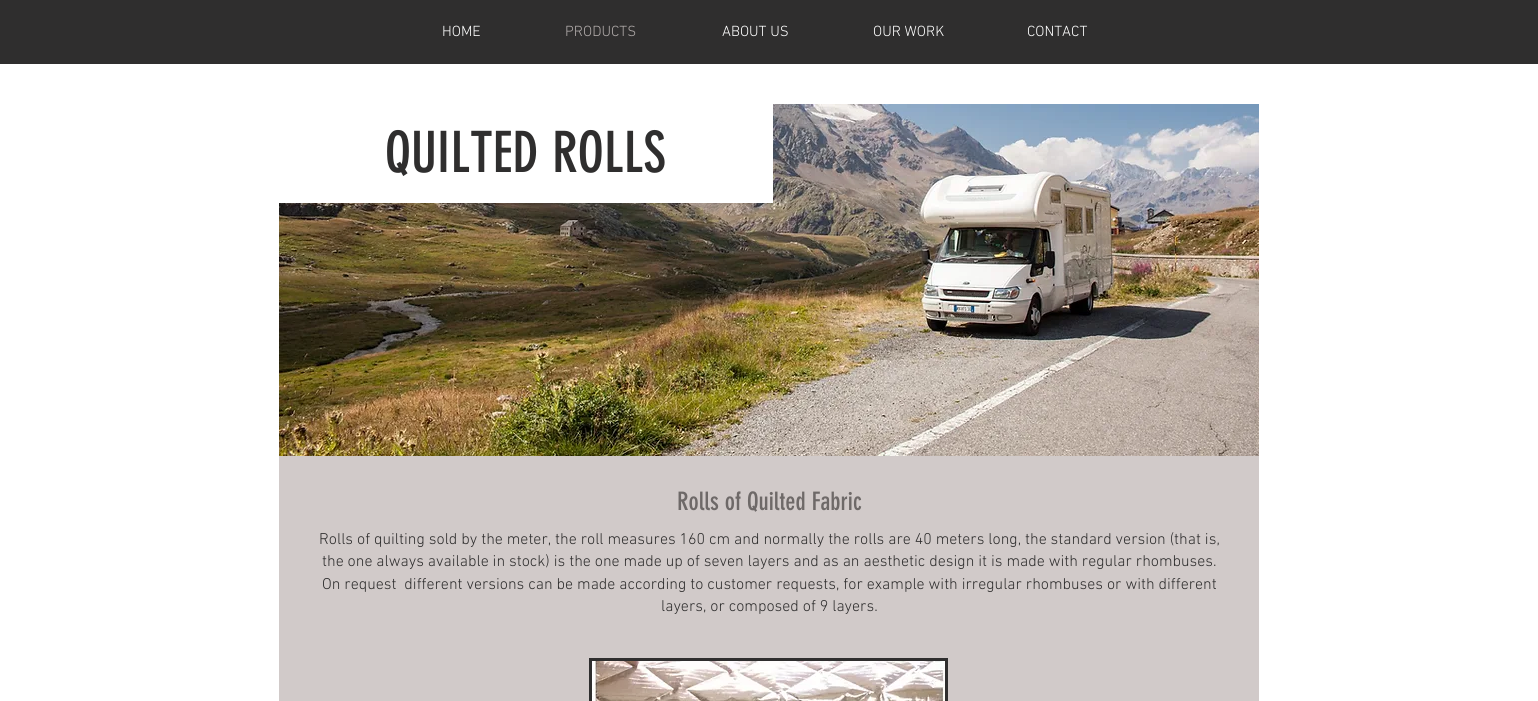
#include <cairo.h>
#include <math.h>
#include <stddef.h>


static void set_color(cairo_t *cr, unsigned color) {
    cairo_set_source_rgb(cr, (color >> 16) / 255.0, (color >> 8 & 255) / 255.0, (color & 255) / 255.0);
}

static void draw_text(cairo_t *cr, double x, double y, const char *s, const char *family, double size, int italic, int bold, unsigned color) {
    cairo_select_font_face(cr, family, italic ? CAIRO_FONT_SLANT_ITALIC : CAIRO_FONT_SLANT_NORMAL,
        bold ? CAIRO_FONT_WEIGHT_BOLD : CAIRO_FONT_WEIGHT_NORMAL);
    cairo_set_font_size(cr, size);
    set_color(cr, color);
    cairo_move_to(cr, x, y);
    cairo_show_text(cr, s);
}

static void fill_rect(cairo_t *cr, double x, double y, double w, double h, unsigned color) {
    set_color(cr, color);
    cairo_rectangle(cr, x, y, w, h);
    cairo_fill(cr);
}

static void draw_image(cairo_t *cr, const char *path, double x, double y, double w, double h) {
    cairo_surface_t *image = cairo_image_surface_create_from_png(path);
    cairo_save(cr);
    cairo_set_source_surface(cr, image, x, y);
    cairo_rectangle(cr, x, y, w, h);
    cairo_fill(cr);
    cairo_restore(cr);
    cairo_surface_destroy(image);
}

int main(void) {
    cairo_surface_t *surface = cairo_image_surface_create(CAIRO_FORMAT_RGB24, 1538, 701);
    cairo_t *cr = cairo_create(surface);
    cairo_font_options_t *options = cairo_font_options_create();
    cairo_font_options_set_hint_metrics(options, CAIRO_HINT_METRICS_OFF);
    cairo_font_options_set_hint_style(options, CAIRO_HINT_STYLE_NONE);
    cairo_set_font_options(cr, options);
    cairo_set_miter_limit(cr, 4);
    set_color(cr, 0xFFFFFF);
    cairo_paint(cr);
    fill_rect(cr, 0, 0, 1538, 64, 0x2F2E2E);
    draw_text(cr, 442, 36, "HOME", "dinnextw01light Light", 15, 0, 0, 0xFFFFFF);
    draw_text(cr, 565, 36, "PRODUCTS", "dinnextw01light Light", 15, 0, 0, 0xB0AAA9);
    draw_text(cr, 722, 36, "ABOUT US", "dinnextw01light Light", 15, 0, 0, 0xFFFFFF);
    draw_text(cr, 873, 36, "OUR WORK", "dinnextw01light Light", 15, 0, 0, 0xFFFFFF);
    draw_text(cr, 1027, 36, "CONTACT", "dinnextw01light Light", 15, 0, 0, 0xFFFFFF);
    draw_image(cr, "assets/img1.png", 279, 104, 980, 352);
    fill_rect(cr, 279, 104, 494, 99, 0xFFFFFF);
    draw_text(cr, 385, 172, "QUILTED ROLLS", "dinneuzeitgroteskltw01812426", 56, 0, 0, 0x2F2E2E);
    fill_rect(cr, 279, 456, 980, 245, 0xD1CAC9);
    draw_text(cr, 677, 510, "Rolls of Quilted Fabric", "dinneuzeitgroteskltw01812426", 25, 0, 0, 0x6E6968);
    draw_text(cr, 319, 544, "Rolls of quilting sold by the meter, the roll measures 160 cm and normally the rolls are 40 meters long, the standard version (that is,", "dinnextw01light Light", 16, 0, 0, 0x2F2E2E);
    draw_text(cr, 322, 566, "the one always available in stock) is the one made up of seven layers and as an aesthetic design it is made with regular rhombuses.", "dinnextw01light Light", 16, 0, 0, 0x2F2E2E);
    draw_text(cr, 322, 589, "On request  different versions can be made according to customer requests, for example with irregular rhombuses or with different", "dinnextw01light Light", 16, 0, 0, 0x2F2E2E);
    draw_text(cr, 661, 611, "layers, or composed of 9 layers.", "dinnextw01light Light", 16, 0, 0, 0x2F2E2E);
    fill_rect(cr, 589, 658, 359, 43, 0x2F2E2E);
    draw_image(cr, "assets/img2.png", 592, 661, 353, 40);
    cairo_surface_write_to_png(surface, "output.png");
    cairo_font_options_destroy(options);
    cairo_destroy(cr);
    cairo_surface_destroy(surface);
    return 0;
}
